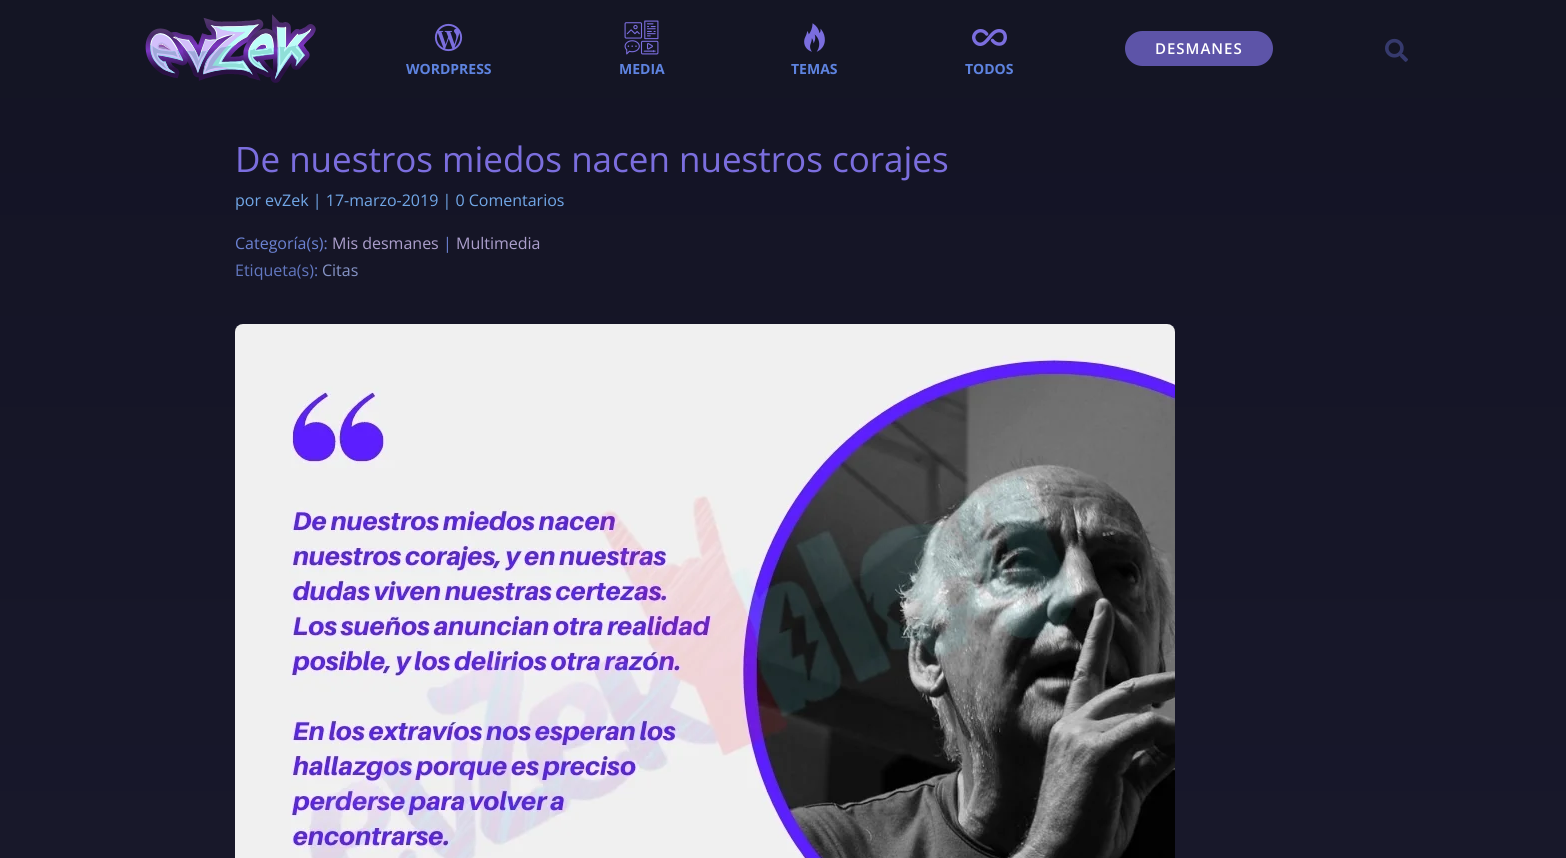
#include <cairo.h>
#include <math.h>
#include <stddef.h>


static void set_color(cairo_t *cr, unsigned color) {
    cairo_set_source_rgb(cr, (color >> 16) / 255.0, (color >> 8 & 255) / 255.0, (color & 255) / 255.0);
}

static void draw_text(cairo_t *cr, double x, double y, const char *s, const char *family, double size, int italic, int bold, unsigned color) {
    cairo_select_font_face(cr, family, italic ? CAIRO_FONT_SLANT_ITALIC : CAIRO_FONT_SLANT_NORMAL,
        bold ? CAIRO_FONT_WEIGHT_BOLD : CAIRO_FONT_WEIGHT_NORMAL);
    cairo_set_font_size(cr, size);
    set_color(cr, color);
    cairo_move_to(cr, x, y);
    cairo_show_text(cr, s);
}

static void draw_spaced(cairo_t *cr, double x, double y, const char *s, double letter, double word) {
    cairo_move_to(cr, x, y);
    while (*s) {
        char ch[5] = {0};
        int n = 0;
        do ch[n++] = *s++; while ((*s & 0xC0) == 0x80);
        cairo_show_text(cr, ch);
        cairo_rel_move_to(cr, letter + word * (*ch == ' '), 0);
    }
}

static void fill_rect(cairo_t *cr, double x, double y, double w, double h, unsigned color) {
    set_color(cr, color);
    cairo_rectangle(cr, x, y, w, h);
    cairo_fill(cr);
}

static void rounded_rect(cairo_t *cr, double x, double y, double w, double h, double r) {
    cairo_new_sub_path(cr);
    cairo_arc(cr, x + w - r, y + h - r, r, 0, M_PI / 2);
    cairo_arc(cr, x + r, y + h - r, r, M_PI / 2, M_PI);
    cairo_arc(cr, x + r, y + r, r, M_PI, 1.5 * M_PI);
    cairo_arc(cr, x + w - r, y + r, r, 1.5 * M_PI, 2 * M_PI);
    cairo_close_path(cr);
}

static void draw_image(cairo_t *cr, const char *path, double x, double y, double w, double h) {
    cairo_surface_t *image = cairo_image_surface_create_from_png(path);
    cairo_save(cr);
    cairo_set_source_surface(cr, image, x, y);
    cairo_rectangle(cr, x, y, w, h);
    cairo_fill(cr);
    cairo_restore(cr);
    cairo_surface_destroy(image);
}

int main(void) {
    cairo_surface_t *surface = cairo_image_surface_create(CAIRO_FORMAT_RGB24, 1566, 858);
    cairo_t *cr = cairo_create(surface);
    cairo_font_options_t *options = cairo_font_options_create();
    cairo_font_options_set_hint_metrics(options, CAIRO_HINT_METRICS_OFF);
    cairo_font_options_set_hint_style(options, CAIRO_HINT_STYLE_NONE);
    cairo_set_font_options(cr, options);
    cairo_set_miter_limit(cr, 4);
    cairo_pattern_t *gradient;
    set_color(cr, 0xFFFFFF);
    cairo_paint(cr);
    fill_rect(cr, 0, 0, 1566, 98, 0x141524);
    draw_image(cr, "assets/img1.png", 145, 14, 171, 69);
    set_color(cr, 0x5D54A8);
    rounded_rect(cr, 1125, 31, 148, 35, 17.5);
    cairo_fill(cr);
    cairo_select_font_face(cr, "Open Sans SemiBold", CAIRO_FONT_SLANT_NORMAL, CAIRO_FONT_WEIGHT_NORMAL);
    cairo_set_font_size(cr, 15);
    set_color(cr, 0xFFFFFF);
    draw_spaced(cr, 1155, 54, "DESMANES", 1, 0);
    draw_image(cr, "assets/img2.png", 1385, 38, 23, 24);
    draw_image(cr, "assets/img3.png", 434, 23, 29, 29);
    draw_text(cr, 406, 74, "WORDPRESS", "Open Sans", 14, 0, 1, 0x5E83E0);
    draw_image(cr, "assets/img4.png", 624, 20, 35, 35);
    draw_text(cr, 619, 74, "MEDIA", "Open Sans", 14, 0, 1, 0x5E83E0);
    draw_image(cr, "assets/img5.png", 804, 23, 21, 29);
    draw_text(cr, 791, 74, "TEMAS", "Open Sans", 14, 0, 1, 0x5E83E0);
    draw_image(cr, "assets/img6.png", 972, 29, 35, 17);
    draw_text(cr, 965, 74, "TODOS", "Open Sans", 14, 0, 1, 0x5E83E0);
    gradient = cairo_pattern_create_linear(783, 98, 783, 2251);
    cairo_pattern_add_color_stop_rgba(gradient, 0, 0.078, 0.078, 0.145, 1);
    cairo_pattern_add_color_stop_rgba(gradient, 1, 0.122, 0.122, 0.204, 1);
    cairo_set_source(cr, gradient);
    cairo_pattern_destroy(gradient);
    cairo_rectangle(cr, 0, 98, 1566, 760);
    cairo_fill(cr);
    draw_text(cr, 235, 172, "De nuestros miedos nacen nuestros corajes", "Open Sans", 35, 0, 0, 0x7B6EDE);
    draw_text(cr, 235, 206, "por evZek | 17-marzo-2019 | 0 Comentarios", "Open Sans", 16, 0, 0, 0x71A7E7);
    draw_text(cr, 235, 249, "Categoría(s):", "Open Sans", 16, 0, 0, 0x6B82D2);
    draw_text(cr, 332, 249, "Mis desmanes", "Open Sans", 16, 0, 0, 0xAC9FCD);
    draw_text(cr, 443, 249, "|", "Open Sans", 16, 0, 0, 0x6B82D2);
    draw_text(cr, 456, 249, "Multimedia", "Open Sans", 16, 0, 0, 0xAC9FCD);
    draw_text(cr, 235, 276, "Etiqueta(s):", "Open Sans", 16, 0, 0, 0x6277C0);
    draw_text(cr, 322, 276, "Citas", "Open Sans", 16, 0, 0, 0x8593C5);
    draw_image(cr, "assets/img7.png", 235, 324, 940, 534);
    cairo_surface_write_to_png(surface, "output.png");
    cairo_font_options_destroy(options);
    cairo_destroy(cr);
    cairo_surface_destroy(surface);
    return 0;
}
